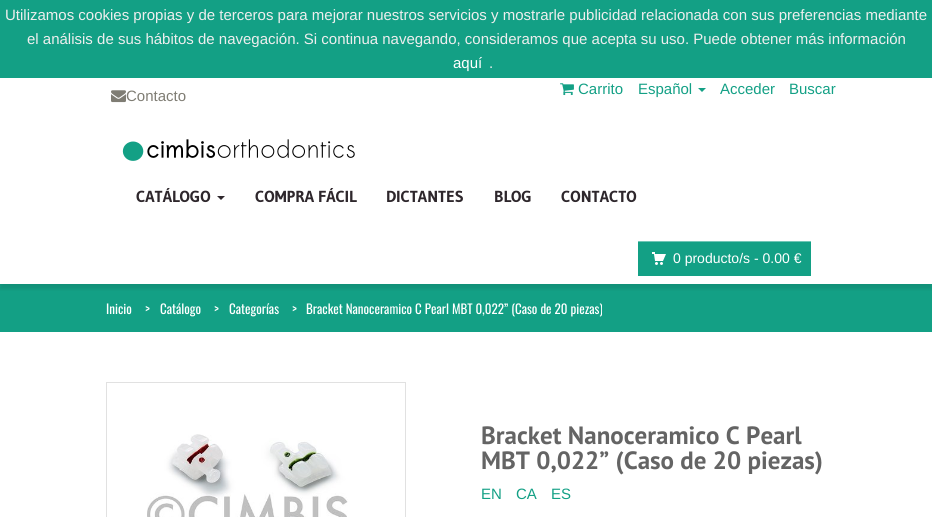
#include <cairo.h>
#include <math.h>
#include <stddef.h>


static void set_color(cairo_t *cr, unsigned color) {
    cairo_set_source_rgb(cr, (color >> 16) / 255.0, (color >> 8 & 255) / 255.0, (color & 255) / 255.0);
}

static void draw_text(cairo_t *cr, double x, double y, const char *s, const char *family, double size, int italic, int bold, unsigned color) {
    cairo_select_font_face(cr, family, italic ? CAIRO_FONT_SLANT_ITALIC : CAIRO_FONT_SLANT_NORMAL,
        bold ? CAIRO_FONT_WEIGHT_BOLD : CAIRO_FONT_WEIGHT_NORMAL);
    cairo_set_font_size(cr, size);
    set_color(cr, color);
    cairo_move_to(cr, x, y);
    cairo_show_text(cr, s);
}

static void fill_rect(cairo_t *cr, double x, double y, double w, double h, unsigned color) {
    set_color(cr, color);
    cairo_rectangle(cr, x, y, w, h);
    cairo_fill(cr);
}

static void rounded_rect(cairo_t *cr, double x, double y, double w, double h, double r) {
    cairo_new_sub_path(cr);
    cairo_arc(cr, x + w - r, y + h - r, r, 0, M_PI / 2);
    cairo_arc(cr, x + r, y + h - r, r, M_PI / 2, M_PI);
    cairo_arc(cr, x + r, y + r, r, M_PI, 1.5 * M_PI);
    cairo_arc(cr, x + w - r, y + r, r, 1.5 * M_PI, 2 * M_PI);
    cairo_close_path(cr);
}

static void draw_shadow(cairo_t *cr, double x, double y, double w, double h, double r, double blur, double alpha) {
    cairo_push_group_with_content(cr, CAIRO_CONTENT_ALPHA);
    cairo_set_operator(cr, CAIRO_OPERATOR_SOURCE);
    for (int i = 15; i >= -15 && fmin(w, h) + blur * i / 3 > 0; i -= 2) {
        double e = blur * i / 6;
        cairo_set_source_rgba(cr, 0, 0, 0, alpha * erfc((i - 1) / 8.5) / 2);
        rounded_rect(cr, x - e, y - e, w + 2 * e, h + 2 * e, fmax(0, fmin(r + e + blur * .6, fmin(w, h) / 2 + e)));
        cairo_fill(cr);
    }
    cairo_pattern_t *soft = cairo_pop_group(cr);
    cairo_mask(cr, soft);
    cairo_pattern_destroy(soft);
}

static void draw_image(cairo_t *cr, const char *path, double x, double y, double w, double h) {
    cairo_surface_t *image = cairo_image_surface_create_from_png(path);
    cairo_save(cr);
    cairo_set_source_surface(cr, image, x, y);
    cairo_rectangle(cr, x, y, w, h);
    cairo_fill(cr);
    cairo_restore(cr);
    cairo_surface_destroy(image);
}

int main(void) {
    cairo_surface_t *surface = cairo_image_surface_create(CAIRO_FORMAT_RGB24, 932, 517);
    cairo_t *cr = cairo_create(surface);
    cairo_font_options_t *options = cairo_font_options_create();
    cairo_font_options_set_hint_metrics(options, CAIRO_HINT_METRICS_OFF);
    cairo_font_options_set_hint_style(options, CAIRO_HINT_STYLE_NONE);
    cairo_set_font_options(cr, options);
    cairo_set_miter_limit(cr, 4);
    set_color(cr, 0x13A085);
    cairo_paint(cr);
    draw_text(cr, 5, 20, "Utilizamos cookies propias y de terceros para mejorar nuestros servicios y mostrarle publicidad relacionada con sus preferencias mediante", "Liberation Sans", 15, 0, 0, 0xEEEEEE);
    draw_text(cr, 27, 44, "el análisis de sus hábitos de navegación. Si continua navegando, consideramos que acepta su uso. Puede obtener más información", "Liberation Sans", 15, 0, 0, 0xEEEEEE);
    draw_text(cr, 453, 68, "aquí", "Liberation Sans", 15, 0, 0, 0xFFFFFF);
    draw_text(cr, 489, 68, ".", "Liberation Sans", 15, 0, 0, 0xEEEEEE);
    fill_rect(cr, 0, 78, 932, 439, 0xFFFFFF);
    draw_image(cr, "assets/img1.png", 111, 90, 15, 13);
    draw_text(cr, 126, 101, "Contacto", "Liberation Sans", 15, 0, 0, 0x7F7D74);
    draw_image(cr, "assets/img2.png", 560, 83, 14, 13);
    draw_text(cr, 578, 94, "Carrito", "Liberation Sans", 15, 0, 0, 0x13A085);
    draw_text(cr, 638, 94, "Español", "Liberation Sans", 15, 0, 0, 0x13A085);
    cairo_new_path(cr);
    cairo_move_to(cr, 698, 88);
    cairo_line_to(cr, 706, 88);
    cairo_line_to(cr, 702, 92);
    cairo_close_path(cr);
    cairo_fill(cr);
    draw_text(cr, 720, 94, "Acceder", "Liberation Sans", 15, 0, 0, 0x13A085);
    draw_text(cr, 789, 94, "Buscar", "Liberation Sans", 15, 0, 0, 0x13A085);
    fill_rect(cr, 0, 284, 932, 48, 0x13A085);
    cairo_save(cr);
    cairo_rectangle(cr, 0, 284, 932, 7);
    cairo_clip(cr);
    set_color(cr, 0x000000);
    draw_shadow(cr, 0, 120, 932, 169, 0, 2, 0.1);
    cairo_restore(cr);
    draw_image(cr, "assets/img3.png", 122, 139, 233, 22);
    draw_text(cr, 136, 202, "CATÁLOGO", "Gudea", 16, 0, 1, 0x2E272C);
    cairo_new_path(cr);
    cairo_move_to(cr, 217, 196);
    cairo_line_to(cr, 225, 196);
    cairo_line_to(cr, 221, 200);
    cairo_close_path(cr);
    cairo_fill(cr);
    draw_text(cr, 255, 202, "COMPRA FÁCIL", "Gudea", 16, 0, 1, 0x2E272C);
    draw_text(cr, 386, 202, "DICTANTES", "Gudea", 16, 0, 1, 0x2E272C);
    draw_text(cr, 494, 202, "BLOG", "Gudea", 16, 0, 1, 0x2E272C);
    draw_text(cr, 561, 202, "CONTACTO", "Gudea", 16, 0, 1, 0x2E272C);
    fill_rect(cr, 638, 242, 173, 34, 0x13A085);
    fill_rect(cr, 638, 241, 173, 1, 0x71C6B6);
    draw_image(cr, "assets/img4.png", 652, 252, 14, 13);
    draw_text(cr, 673, 263, "0 producto/s - 0.00 €", "Liberation Sans", 14, 0, 0, 0xFFFFFF);
    draw_text(cr, 106, 314, "Inicio", "Oswald", 13, 0, 0, 0xFFFFFF);
    draw_text(cr, 145, 314, ">", "Oswald", 13, 0, 0, 0xFFFFFF);
    draw_text(cr, 160, 314, "Catálogo", "Oswald", 13, 0, 0, 0xFFFFFF);
    draw_text(cr, 214, 314, ">", "Oswald", 13, 0, 0, 0xFFFFFF);
    draw_text(cr, 229, 314, "Categorías", "Oswald", 13, 0, 0, 0xFFFFFF);
    draw_text(cr, 292, 314, ">", "Oswald", 13, 0, 0, 0xFFFFFF);
    draw_text(cr, 306, 314, "Bracket Nanoceramico C Pearl MBT 0,022” (Caso de 20 piezas)", "Oswald", 13, 0, 0, 0xFFFFFF);
    cairo_rectangle(cr, 106.5, 382.5, 299, 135);
    set_color(cr, 0xE1E1E1);
    cairo_set_line_width(cr, 1);
    cairo_stroke(cr);
    draw_image(cr, "assets/img5.png", 147, 434, 201, 83);
    draw_text(cr, 481, 444, "Bracket Nanoceramico C Pearl", "PT Sans", 25, 0, 1, 0x646464);
    draw_text(cr, 481, 469, "MBT 0,022” (Caso de 20 piezas)", "PT Sans", 25, 0, 1, 0x646464);
    draw_text(cr, 481, 499, "EN", "Liberation Sans", 15, 0, 0, 0x13A085);
    draw_text(cr, 516, 499, "CA", "Liberation Sans", 15, 0, 0, 0x13A085);
    draw_text(cr, 551, 499, "ES", "Liberation Sans", 15, 0, 0, 0x13A085);
    cairo_surface_write_to_png(surface, "output.png");
    cairo_font_options_destroy(options);
    cairo_destroy(cr);
    cairo_surface_destroy(surface);
    return 0;
}
